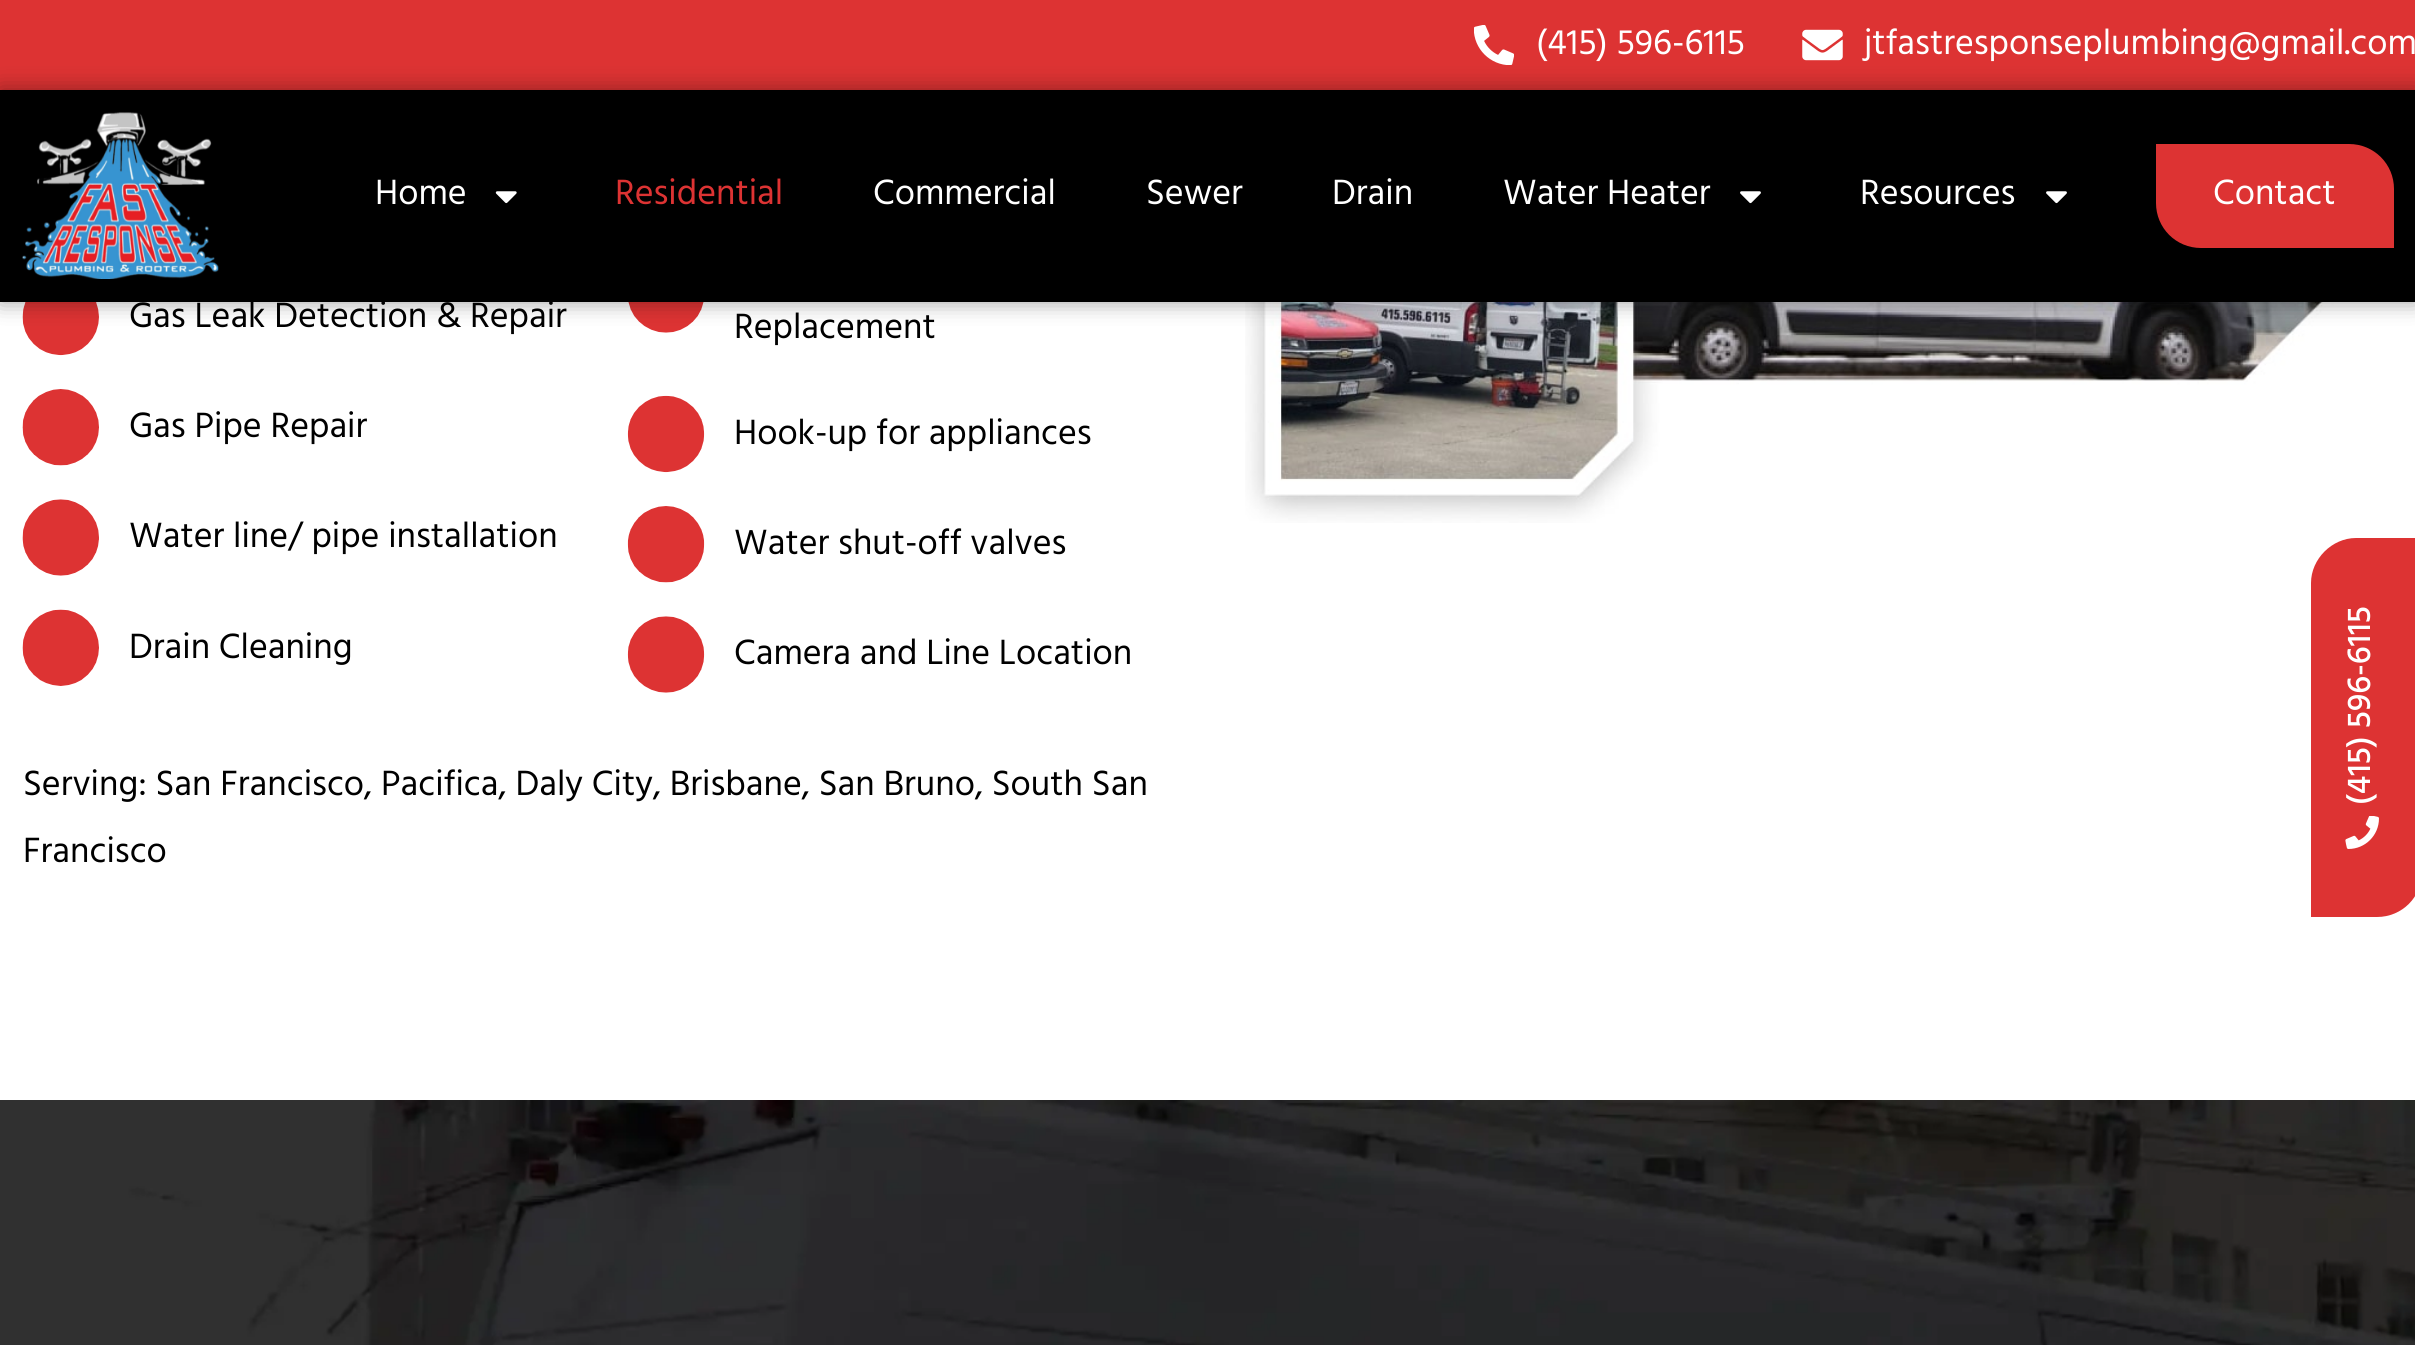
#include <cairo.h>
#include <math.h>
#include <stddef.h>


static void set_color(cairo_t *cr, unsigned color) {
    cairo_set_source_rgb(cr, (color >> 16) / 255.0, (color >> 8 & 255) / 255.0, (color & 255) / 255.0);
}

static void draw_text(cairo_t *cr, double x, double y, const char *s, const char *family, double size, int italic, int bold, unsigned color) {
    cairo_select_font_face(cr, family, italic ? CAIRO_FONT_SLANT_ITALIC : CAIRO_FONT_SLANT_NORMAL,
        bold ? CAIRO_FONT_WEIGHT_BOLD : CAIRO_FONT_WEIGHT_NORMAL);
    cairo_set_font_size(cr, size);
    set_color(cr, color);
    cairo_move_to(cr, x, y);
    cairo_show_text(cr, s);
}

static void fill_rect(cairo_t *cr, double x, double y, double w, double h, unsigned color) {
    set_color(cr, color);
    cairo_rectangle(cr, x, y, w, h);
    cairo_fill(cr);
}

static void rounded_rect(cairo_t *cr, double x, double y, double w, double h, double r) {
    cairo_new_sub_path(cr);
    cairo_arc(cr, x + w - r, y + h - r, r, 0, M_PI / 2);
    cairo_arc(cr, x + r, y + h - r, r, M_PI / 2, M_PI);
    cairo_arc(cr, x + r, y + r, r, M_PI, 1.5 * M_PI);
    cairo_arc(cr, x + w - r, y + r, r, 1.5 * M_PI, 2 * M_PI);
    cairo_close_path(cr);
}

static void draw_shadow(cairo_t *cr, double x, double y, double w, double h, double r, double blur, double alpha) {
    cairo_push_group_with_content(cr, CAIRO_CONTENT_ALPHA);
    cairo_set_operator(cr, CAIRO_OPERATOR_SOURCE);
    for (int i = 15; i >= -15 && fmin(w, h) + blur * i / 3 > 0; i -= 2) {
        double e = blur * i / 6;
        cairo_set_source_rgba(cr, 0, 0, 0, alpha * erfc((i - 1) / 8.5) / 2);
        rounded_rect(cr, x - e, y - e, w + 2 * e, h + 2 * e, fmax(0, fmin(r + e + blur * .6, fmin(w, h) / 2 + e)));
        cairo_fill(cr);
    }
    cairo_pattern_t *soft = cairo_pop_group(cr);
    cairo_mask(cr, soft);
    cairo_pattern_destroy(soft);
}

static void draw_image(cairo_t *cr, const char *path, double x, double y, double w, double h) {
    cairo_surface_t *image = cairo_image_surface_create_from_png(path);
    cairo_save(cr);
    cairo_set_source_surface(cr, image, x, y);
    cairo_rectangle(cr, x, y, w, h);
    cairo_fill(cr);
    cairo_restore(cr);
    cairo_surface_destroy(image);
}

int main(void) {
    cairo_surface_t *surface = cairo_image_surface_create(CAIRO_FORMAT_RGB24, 2415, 1345);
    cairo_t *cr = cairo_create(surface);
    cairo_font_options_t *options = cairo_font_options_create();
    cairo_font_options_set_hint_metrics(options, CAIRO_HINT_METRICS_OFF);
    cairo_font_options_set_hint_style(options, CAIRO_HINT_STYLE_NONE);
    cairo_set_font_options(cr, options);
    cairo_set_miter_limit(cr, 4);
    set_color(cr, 0xFFFFFF);
    cairo_paint(cr);
    fill_rect(cr, 0, 0, 2415, 90, 0xDD3333);
    draw_image(cr, "assets/img1.png", 1474, 25, 40, 40);
    draw_text(cr, 1536, 54, "(415) 596-6115", "Hind", 36, 0, 0, 0xFFFFFF);
    draw_image(cr, "assets/img2.png", 1802, 29, 41, 32);
    draw_text(cr, 1864, 54, "jtfastresponseplumbing@gmail.com", "Hind", 36, 0, 0, 0xFFFFFF);
    draw_image(cr, "assets/img6.png", 22, 302, 77, 54);
    draw_image(cr, "assets/img7.png", 628, 302, 76, 31);
    draw_image(cr, "assets/img14.png", 1245, 302, 1149, 221);
    set_color(cr, 0x000000);
    draw_shadow(cr, 0, 90, 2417, 212, 0, 11, 0.39);
    fill_rect(cr, 0, 90, 2415, 212, 0x000000);
    draw_image(cr, "assets/img3.png", 22, 112, 197, 167);
    draw_text(cr, 375, 204, "Home", "Hind", 36, 0, 0, 0xFFFFFF);
    draw_image(cr, "assets/img4.png", 495, 191, 22, 13);
    draw_text(cr, 615, 204, "Residential", "Hind", 36, 0, 0, 0xDD3333);
    draw_text(cr, 873, 204, "Commercial", "Hind", 36, 0, 0, 0xFFFFFF);
    draw_text(cr, 1146, 204, "Sewer", "Hind", 36, 0, 0, 0xFFFFFF);
    draw_text(cr, 1332, 204, "Drain", "Hind", 36, 0, 0, 0xFFFFFF);
    draw_text(cr, 1503, 204, "Water Heater", "Hind", 36, 0, 0, 0xFFFFFF);
    draw_image(cr, "assets/img5.png", 1740, 191, 21, 13);
    draw_text(cr, 1860, 204, "Resources", "Hind", 36, 0, 0, 0xFFFFFF);
    draw_image(cr, "assets/img5.png", 2046, 191, 21, 13);
    set_color(cr, 0xDD3333);
    cairo_new_path(cr);
    cairo_move_to(cr, 2156, 144);
    cairo_line_to(cr, 2349, 144);
    cairo_curve_to(cr, 2374, 144, 2394, 164, 2394, 189);
    cairo_line_to(cr, 2394, 248);
    cairo_line_to(cr, 2201, 248);
    cairo_curve_to(cr, 2176, 248, 2156, 228, 2156, 203);
    cairo_close_path(cr);
    cairo_fill(cr);
    draw_text(cr, 2213, 204, "Contact", "Hind", 36, 0, 0, 0xFFFFFF);
    draw_text(cr, 129, 327, "Gas Leak Detection & Repair", "Hind", 36, 0, 0, 0x000000);
    draw_text(cr, 734, 338, "Replacement", "Hind", 36, 0, 0, 0x000000);
    draw_image(cr, "assets/img8.png", 22, 389, 77, 77);
    draw_text(cr, 129, 437, "Gas Pipe Repair", "Hind", 36, 0, 0, 0x000000);
    draw_image(cr, "assets/img9.png", 627, 395, 78, 78);
    draw_text(cr, 734, 444, "Hook-up for appliances", "Hind", 36, 0, 0, 0x000000);
    draw_image(cr, "assets/img10.png", 22, 499, 77, 77);
    draw_text(cr, 129, 547, "Water line/ pipe installation", "Hind", 36, 0, 0, 0x000000);
    draw_image(cr, "assets/img11.png", 627, 506, 78, 77);
    draw_text(cr, 734, 554, "Water shut-off valves", "Hind", 36, 0, 0, 0x000000);
    draw_image(cr, "assets/img12.png", 22, 609, 77, 77);
    draw_text(cr, 129, 658, "Drain Cleaning", "Hind", 36, 0, 0, 0x000000);
    draw_image(cr, "assets/img13.png", 627, 616, 78, 77);
    draw_text(cr, 734, 664, "Camera and Line Location", "Hind", 36, 0, 0, 0x000000);
    draw_text(cr, 23, 795, "Serving: San Francisco, Pacifica, Daly City, Brisbane, San Bruno, South San", "Hind", 36, 0, 0, 0x000000);
    draw_text(cr, 23, 862, "Francisco", "Hind", 36, 0, 0, 0x000000);
    draw_image(cr, "assets/img15.png", 0, 1100, 2415, 245);
    set_color(cr, 0xDD3333);
    cairo_new_path(cr);
    cairo_move_to(cr, 2311, 917);
    cairo_line_to(cr, 2311, 583);
    cairo_curve_to(cr, 2311, 559, 2332, 538, 2356, 538);
    cairo_line_to(cr, 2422, 538);
    cairo_line_to(cr, 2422, 872);
    cairo_curve_to(cr, 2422, 897, 2402, 917, 2377, 917);
    cairo_close_path(cr);
    cairo_fill(cr);
    cairo_save(cr);
    cairo_translate(cr, 2370, 805);
    cairo_rotate(cr, -90 * M_PI / 180);
    draw_text(cr, 0, 0, "(415) 596-6115", "Hind Medium", 33.75, 0, 0, 0xFFFFFF);
    cairo_restore(cr);
    draw_image(cr, "assets/img16.png", 2345, 816, 34, 33);
    cairo_surface_write_to_png(surface, "output.png");
    cairo_font_options_destroy(options);
    cairo_destroy(cr);
    cairo_surface_destroy(surface);
    return 0;
}
